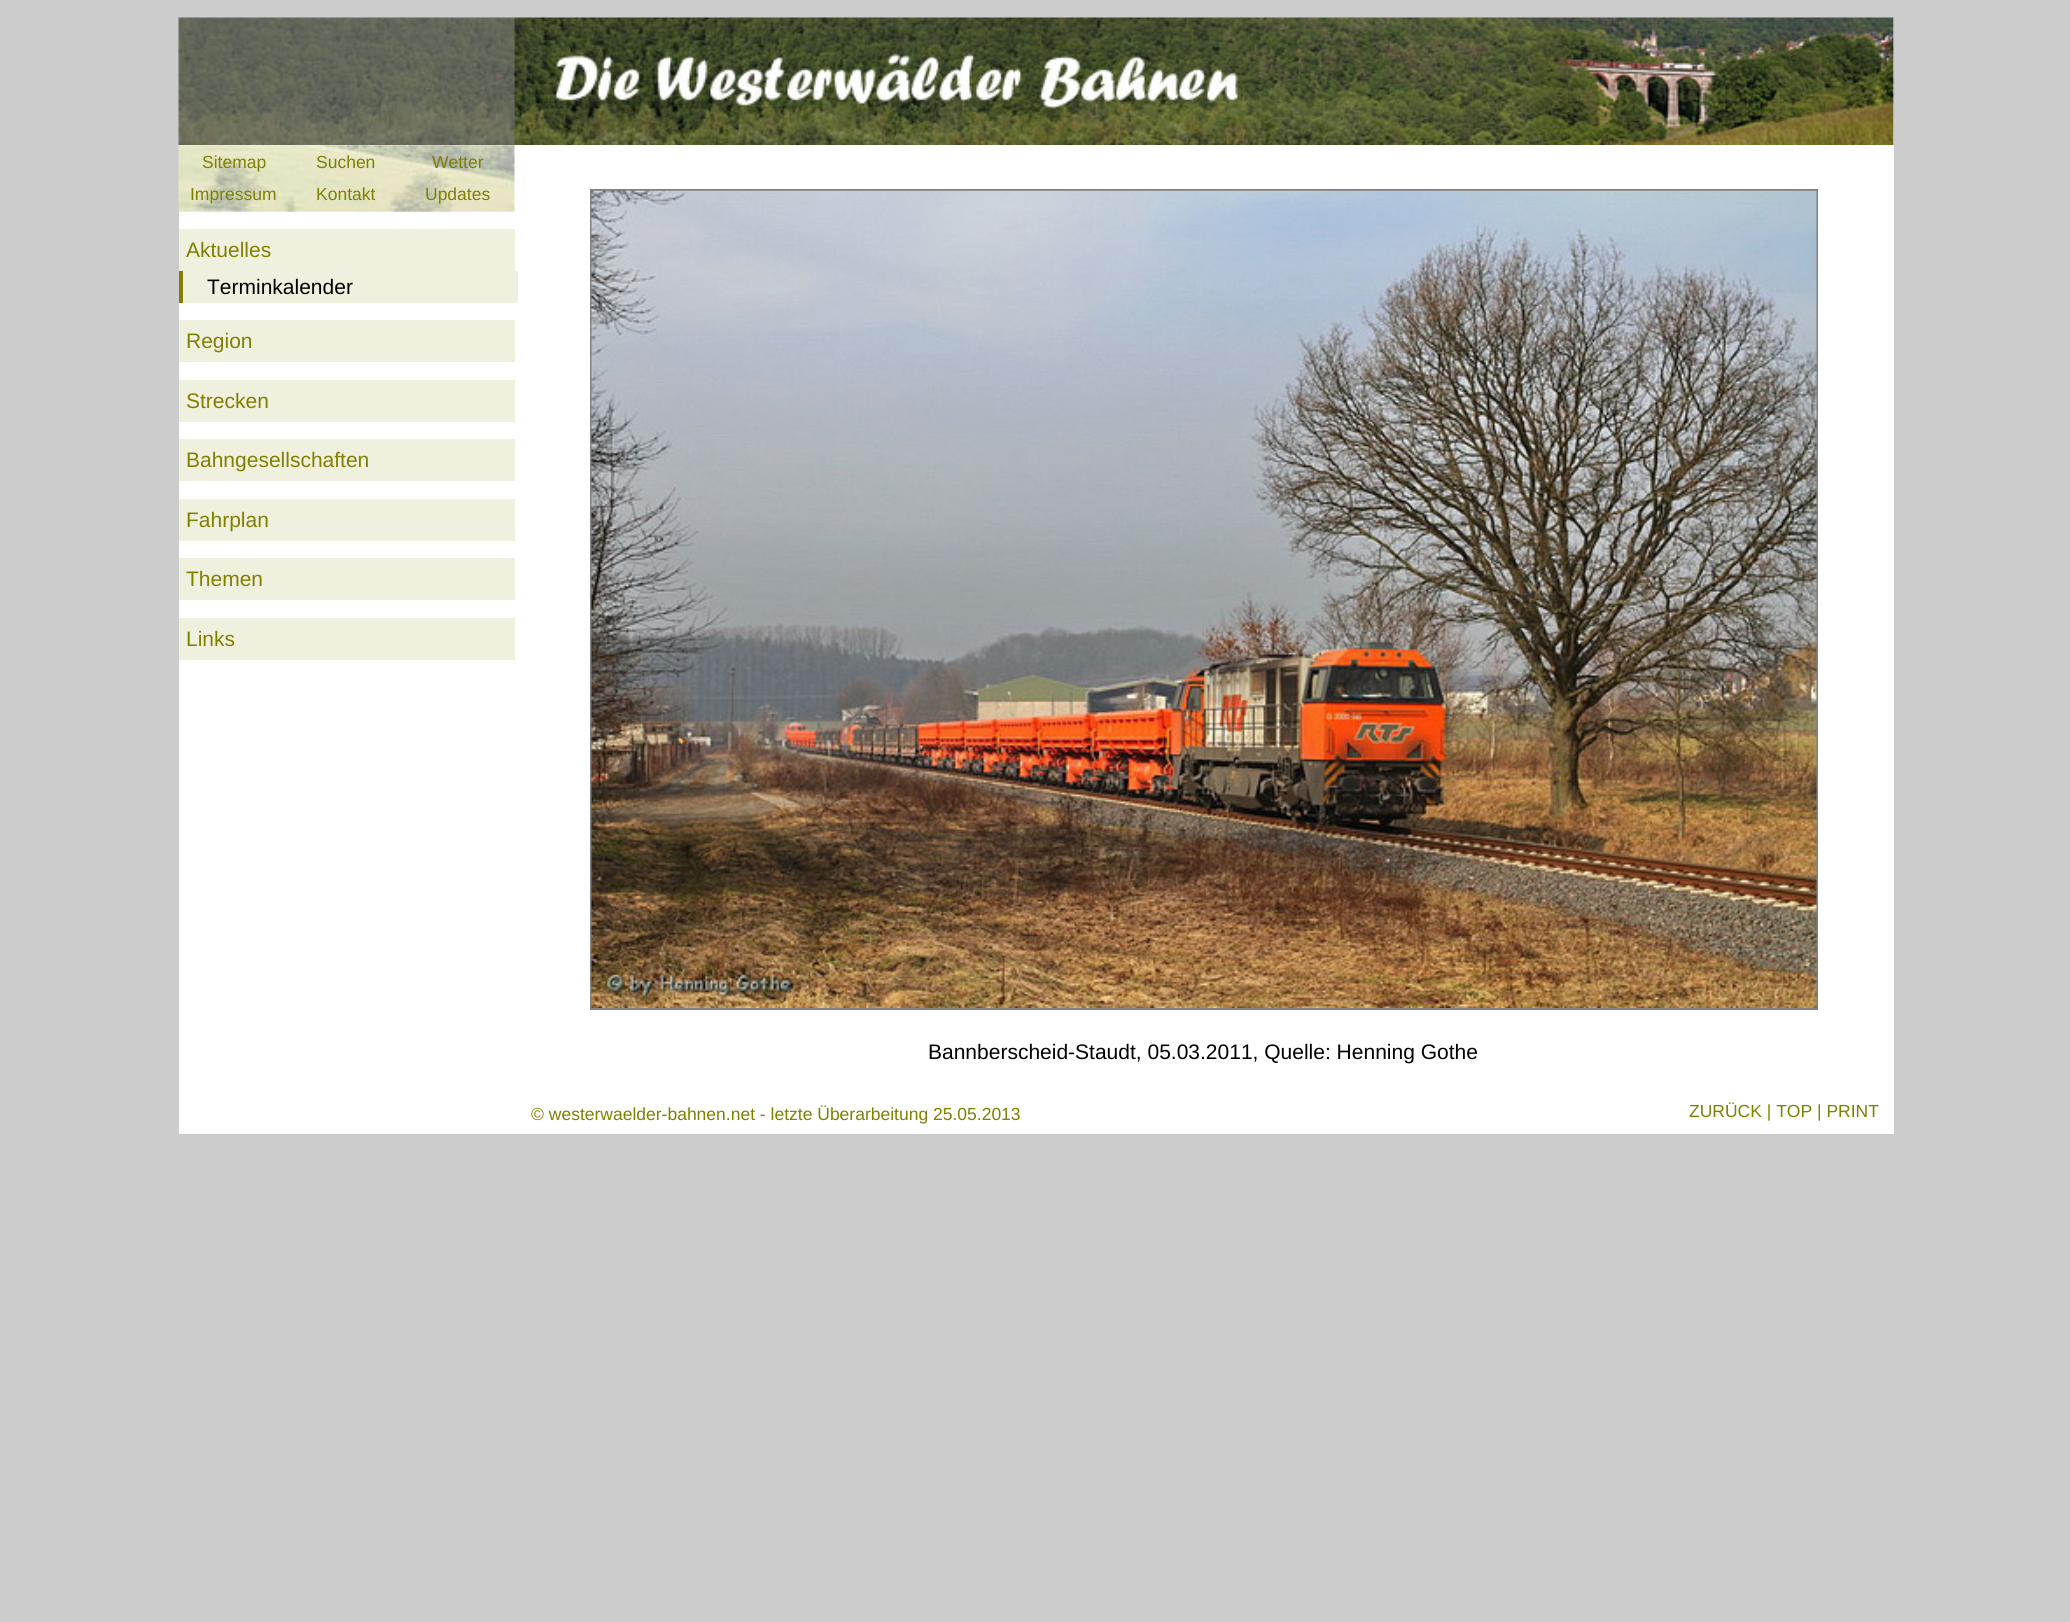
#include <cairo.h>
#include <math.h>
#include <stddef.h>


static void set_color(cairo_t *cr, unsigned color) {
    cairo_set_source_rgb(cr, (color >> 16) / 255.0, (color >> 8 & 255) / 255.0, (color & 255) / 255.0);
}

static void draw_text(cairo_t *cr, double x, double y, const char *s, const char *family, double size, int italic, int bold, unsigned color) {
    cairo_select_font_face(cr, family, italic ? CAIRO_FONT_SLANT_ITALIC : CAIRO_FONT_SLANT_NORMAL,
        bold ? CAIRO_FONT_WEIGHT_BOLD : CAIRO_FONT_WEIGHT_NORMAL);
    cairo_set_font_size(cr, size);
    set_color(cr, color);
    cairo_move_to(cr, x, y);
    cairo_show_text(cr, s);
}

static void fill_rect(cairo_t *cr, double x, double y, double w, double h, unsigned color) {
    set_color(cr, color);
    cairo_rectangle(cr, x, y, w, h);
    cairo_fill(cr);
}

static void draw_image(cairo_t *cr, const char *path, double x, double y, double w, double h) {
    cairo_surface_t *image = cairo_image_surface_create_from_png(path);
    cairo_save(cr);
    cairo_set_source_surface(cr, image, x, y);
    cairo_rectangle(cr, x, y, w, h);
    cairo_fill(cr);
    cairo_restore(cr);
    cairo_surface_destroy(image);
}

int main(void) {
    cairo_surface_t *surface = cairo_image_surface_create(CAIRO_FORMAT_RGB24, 2070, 1622);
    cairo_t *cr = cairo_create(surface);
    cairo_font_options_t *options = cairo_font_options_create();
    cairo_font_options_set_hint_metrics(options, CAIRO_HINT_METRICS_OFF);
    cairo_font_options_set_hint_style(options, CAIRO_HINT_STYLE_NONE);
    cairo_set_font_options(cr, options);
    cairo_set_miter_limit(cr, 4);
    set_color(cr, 0xCCCCCC);
    cairo_paint(cr);
    fill_rect(cr, 1893, 18, 1, 127, 0xFFFFFF);
    draw_image(cr, "assets/img1.png", 178, 17, 1716, 129);
    fill_rect(cr, 179, 145, 1715, 989, 0xFFFFFF);
    draw_image(cr, "assets/img2.png", 178, 145, 337, 67);
    draw_text(cr, 202, 168, "Sitemap", "Liberation Sans", 17.5, 0, 0, 0x808000);
    draw_text(cr, 316, 168, "Suchen", "Liberation Sans", 17.5, 0, 0, 0x808000);
    draw_text(cr, 432, 168, "Wetter", "Liberation Sans", 17.5, 0, 0, 0x808000);
    draw_text(cr, 190, 200, "Impressum", "Liberation Sans", 17.5, 0, 0, 0x808000);
    draw_text(cr, 316, 200, "Kontakt", "Liberation Sans", 17.5, 0, 0, 0x808000);
    draw_text(cr, 425, 200, "Updates", "Liberation Sans", 17.5, 0, 0, 0x808000);
    fill_rect(cr, 179, 229, 336, 42, 0xF0F0DE);
    draw_text(cr, 186, 257, "Aktuelles", "Liberation Sans", 21, 0, 0, 0x808000);
    fill_rect(cr, 183, 271, 335, 32, 0xF0F0DE);
    fill_rect(cr, 179, 271, 4, 32, 0x808000);
    draw_text(cr, 207, 294, "Terminkalender", "Liberation Sans", 21, 0, 0, 0x000000);
    fill_rect(cr, 179, 320, 336, 42, 0xF0F0DE);
    draw_text(cr, 186, 348, "Region", "Liberation Sans", 21, 0, 0, 0x808000);
    fill_rect(cr, 179, 380, 336, 42, 0xF0F0DE);
    draw_text(cr, 186, 408, "Strecken", "Liberation Sans", 21, 0, 0, 0x808000);
    fill_rect(cr, 179, 439, 336, 42, 0xF0F0DE);
    draw_text(cr, 186, 467, "Bahngesellschaften", "Liberation Sans", 21, 0, 0, 0x808000);
    fill_rect(cr, 179, 499, 336, 42, 0xF0F0DE);
    draw_text(cr, 186, 527, "Fahrplan", "Liberation Sans", 21, 0, 0, 0x808000);
    fill_rect(cr, 179, 558, 336, 42, 0xF0F0DE);
    draw_text(cr, 186, 586, "Themen", "Liberation Sans", 21, 0, 0, 0x808000);
    fill_rect(cr, 179, 618, 336, 42, 0xF0F0DE);
    draw_text(cr, 186, 646, "Links", "Liberation Sans", 21, 0, 0, 0x808000);
    cairo_rectangle(cr, 591, 190, 1226, 819);
    set_color(cr, 0x808080);
    cairo_stroke(cr);
    draw_image(cr, "assets/img3.png", 591, 190, 1226, 818);
    draw_text(cr, 928, 1059, "Bannberscheid-Staudt, 05.03.2011, Quelle: Henning Gothe", "Liberation Sans", 21, 0, 0, 0x000000);
    draw_text(cr, 531, 1120, "© westerwaelder-bahnen.net - letzte Überarbeitung 25.05.2013", "Liberation Sans", 17.5, 0, 0, 0x808000);
    draw_text(cr, 1689, 1117, "ZURÜCK | TOP | PRINT", "Liberation Sans", 17.5, 0, 0, 0x808000);
    cairo_surface_write_to_png(surface, "output.png");
    cairo_font_options_destroy(options);
    cairo_destroy(cr);
    cairo_surface_destroy(surface);
    return 0;
}
